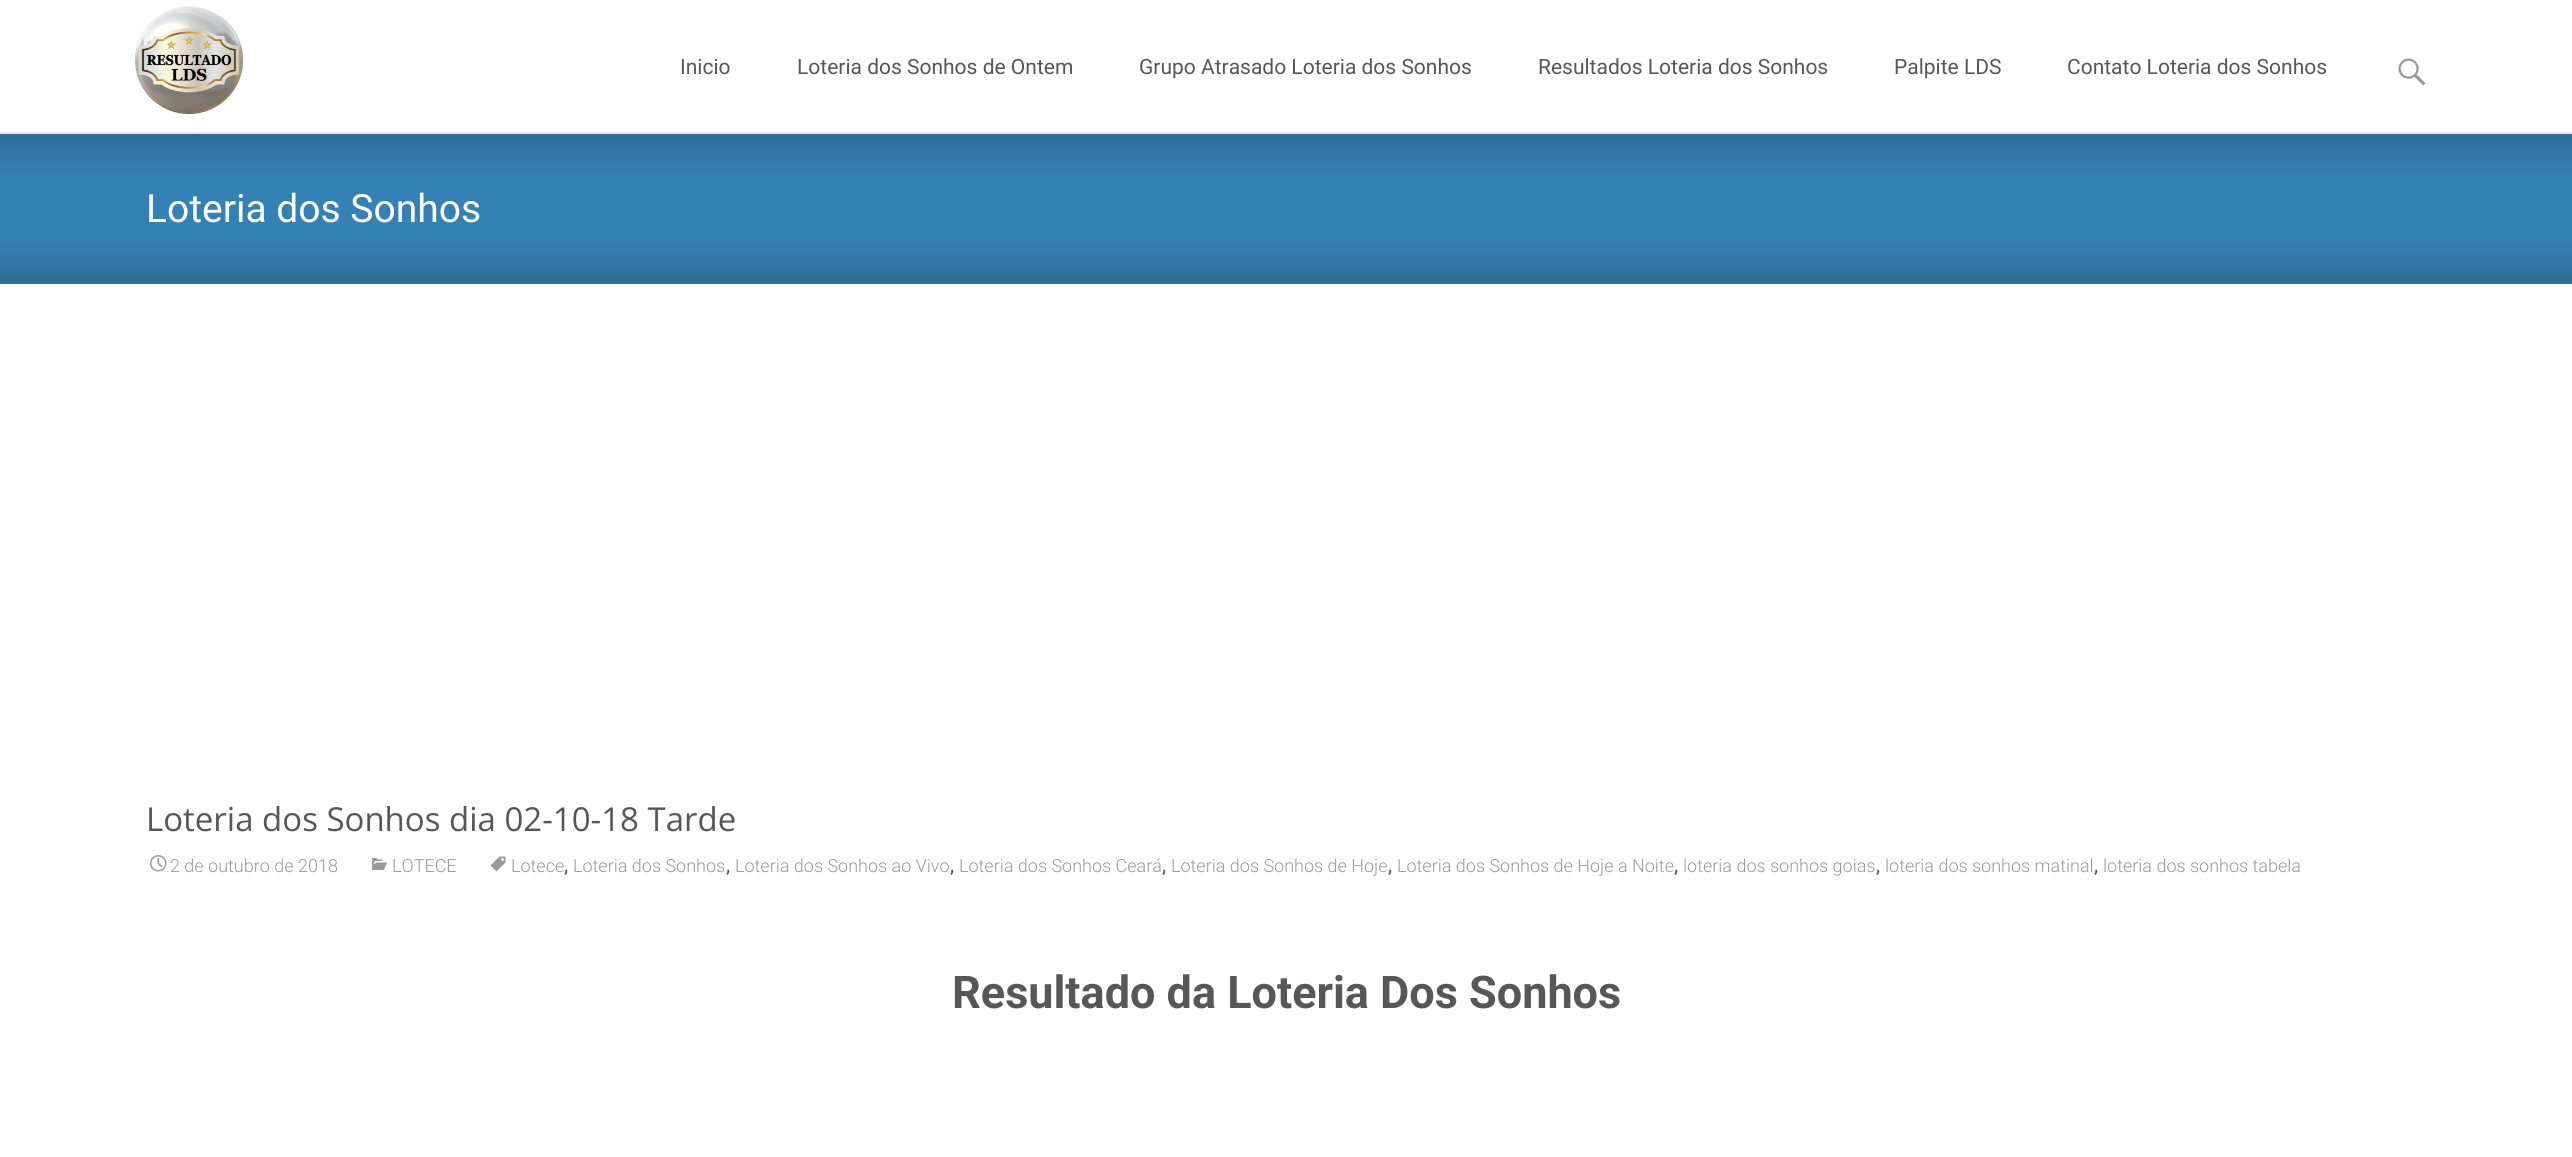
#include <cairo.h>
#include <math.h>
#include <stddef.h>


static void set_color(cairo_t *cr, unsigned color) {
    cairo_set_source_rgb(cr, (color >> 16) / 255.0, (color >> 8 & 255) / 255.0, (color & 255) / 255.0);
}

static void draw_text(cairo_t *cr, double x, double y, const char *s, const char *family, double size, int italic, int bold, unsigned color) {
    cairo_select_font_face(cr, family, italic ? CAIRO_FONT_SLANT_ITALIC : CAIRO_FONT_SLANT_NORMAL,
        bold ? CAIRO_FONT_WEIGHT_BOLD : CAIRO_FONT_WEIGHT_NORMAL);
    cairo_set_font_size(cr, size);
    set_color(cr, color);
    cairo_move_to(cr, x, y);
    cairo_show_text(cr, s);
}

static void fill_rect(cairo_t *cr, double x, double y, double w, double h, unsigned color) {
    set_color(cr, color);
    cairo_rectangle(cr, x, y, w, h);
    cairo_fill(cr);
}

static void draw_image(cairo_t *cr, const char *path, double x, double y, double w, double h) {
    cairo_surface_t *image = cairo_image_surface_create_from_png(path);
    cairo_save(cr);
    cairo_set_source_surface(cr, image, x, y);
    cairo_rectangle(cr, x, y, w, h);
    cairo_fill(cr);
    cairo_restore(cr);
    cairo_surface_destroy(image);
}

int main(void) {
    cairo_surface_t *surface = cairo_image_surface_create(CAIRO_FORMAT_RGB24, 2572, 1157);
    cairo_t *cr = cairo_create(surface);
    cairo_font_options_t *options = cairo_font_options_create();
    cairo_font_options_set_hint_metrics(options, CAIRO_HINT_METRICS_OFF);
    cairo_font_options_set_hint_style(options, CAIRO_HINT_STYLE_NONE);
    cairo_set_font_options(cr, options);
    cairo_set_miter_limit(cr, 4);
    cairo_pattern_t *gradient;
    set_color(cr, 0xFFFFFF);
    cairo_paint(cr);
    fill_rect(cr, 0, 132, 2572, 2, 0xE7E7E7);
    draw_image(cr, "assets/img1.png", 134, 6, 109, 108);
    draw_text(cr, 680, 74, "Inicio", "Roboto", 21, 0, 0, 0x575757);
    draw_text(cr, 797, 74, "Loteria dos Sonhos de Ontem", "Roboto", 21, 0, 0, 0x575757);
    draw_text(cr, 1139, 74, "Grupo Atrasado Loteria dos Sonhos", "Roboto", 21, 0, 0, 0x575757);
    draw_text(cr, 1538, 74, "Resultados Loteria dos Sonhos", "Roboto", 21, 0, 0, 0x575757);
    draw_text(cr, 1894, 74, "Palpite LDS", "Roboto", 21, 0, 0, 0x575757);
    draw_text(cr, 2067, 74, "Contato Loteria dos Sonhos", "Roboto", 21, 0, 0, 0x575757);
    draw_image(cr, "assets/img2.png", 2398, 58, 28, 28);
    gradient = cairo_pattern_create_linear(1286, 133, 1286, 284);
    cairo_pattern_add_color_stop_rgba(gradient, 0, 0.173, 0.427, 0.6, 1);
    cairo_pattern_add_color_stop_rgba(gradient, 0.3, 0.204, 0.506, 0.714, 1);
    cairo_pattern_add_color_stop_rgba(gradient, 0.69, 0.204, 0.506, 0.714, 1);
    cairo_pattern_add_color_stop_rgba(gradient, 1, 0.173, 0.427, 0.6, 1);
    cairo_set_source(cr, gradient);
    cairo_pattern_destroy(gradient);
    cairo_rectangle(cr, 0, 134, 2572, 150);
    cairo_fill(cr);
    draw_text(cr, 146, 222, "Loteria dos Sonhos", "Roboto", 39, 0, 0, 0xFFFFFF);
    draw_text(cr, 146, 831, "Loteria dos Sonhos dia 02-10-18 Tarde", "Open Sans", 33, 0, 0, 0x575757);
    draw_image(cr, "assets/img3.png", 150, 855, 17, 17);
    draw_text(cr, 170, 872, "2 de outubro de 2018", "Roboto Light", 18, 0, 0, 0x999999);
    draw_image(cr, "assets/img4.png", 372, 858, 15, 12);
    draw_text(cr, 392, 872, "LOTECE", "Roboto Light", 18, 0, 0, 0x999999);
    draw_image(cr, "assets/img5.png", 490, 856, 16, 16);
    draw_text(cr, 511, 872, "Lotece", "Roboto Light", 18, 0, 0, 0x999999);
    draw_text(cr, 564, 872, ",", "Roboto", 21, 0, 0, 0x575757);
    draw_text(cr, 573, 872, "Loteria dos Sonhos", "Roboto Light", 18, 0, 0, 0x999999);
    draw_text(cr, 726, 872, ",", "Roboto", 21, 0, 0, 0x575757);
    draw_text(cr, 735, 872, "Loteria dos Sonhos ao Vivo", "Roboto Light", 18, 0, 0, 0x999999);
    draw_text(cr, 950, 872, ",", "Roboto", 21, 0, 0, 0x575757);
    draw_text(cr, 959, 872, "Loteria dos Sonhos Ceará", "Roboto Light", 18, 0, 0, 0x999999);
    draw_text(cr, 1162, 872, ",", "Roboto", 21, 0, 0, 0x575757);
    draw_text(cr, 1171, 872, "Loteria dos Sonhos de Hoje", "Roboto Light", 18, 0, 0, 0x999999);
    draw_text(cr, 1388, 872, ",", "Roboto", 21, 0, 0, 0x575757);
    draw_text(cr, 1397, 872, "Loteria dos Sonhos de Hoje a Noite", "Roboto Light", 18, 0, 0, 0x999999);
    draw_text(cr, 1674, 872, ",", "Roboto", 21, 0, 0, 0x575757);
    draw_text(cr, 1683, 872, "loteria dos sonhos goias", "Roboto Light", 18, 0, 0, 0x999999);
    draw_text(cr, 1876, 872, ",", "Roboto", 21, 0, 0, 0x575757);
    draw_text(cr, 1885, 872, "loteria dos sonhos matinal", "Roboto Light", 18, 0, 0, 0x999999);
    draw_text(cr, 2094, 872, ",", "Roboto", 21, 0, 0, 0x575757);
    draw_text(cr, 2103, 872, "loteria dos sonhos tabela", "Roboto Light", 18, 0, 0, 0x999999);
    draw_text(cr, 952, 1008, "Resultado da Loteria Dos Sonhos", "Roboto", 45, 0, 1, 0x575757);
    cairo_surface_write_to_png(surface, "output.png");
    cairo_font_options_destroy(options);
    cairo_destroy(cr);
    cairo_surface_destroy(surface);
    return 0;
}
